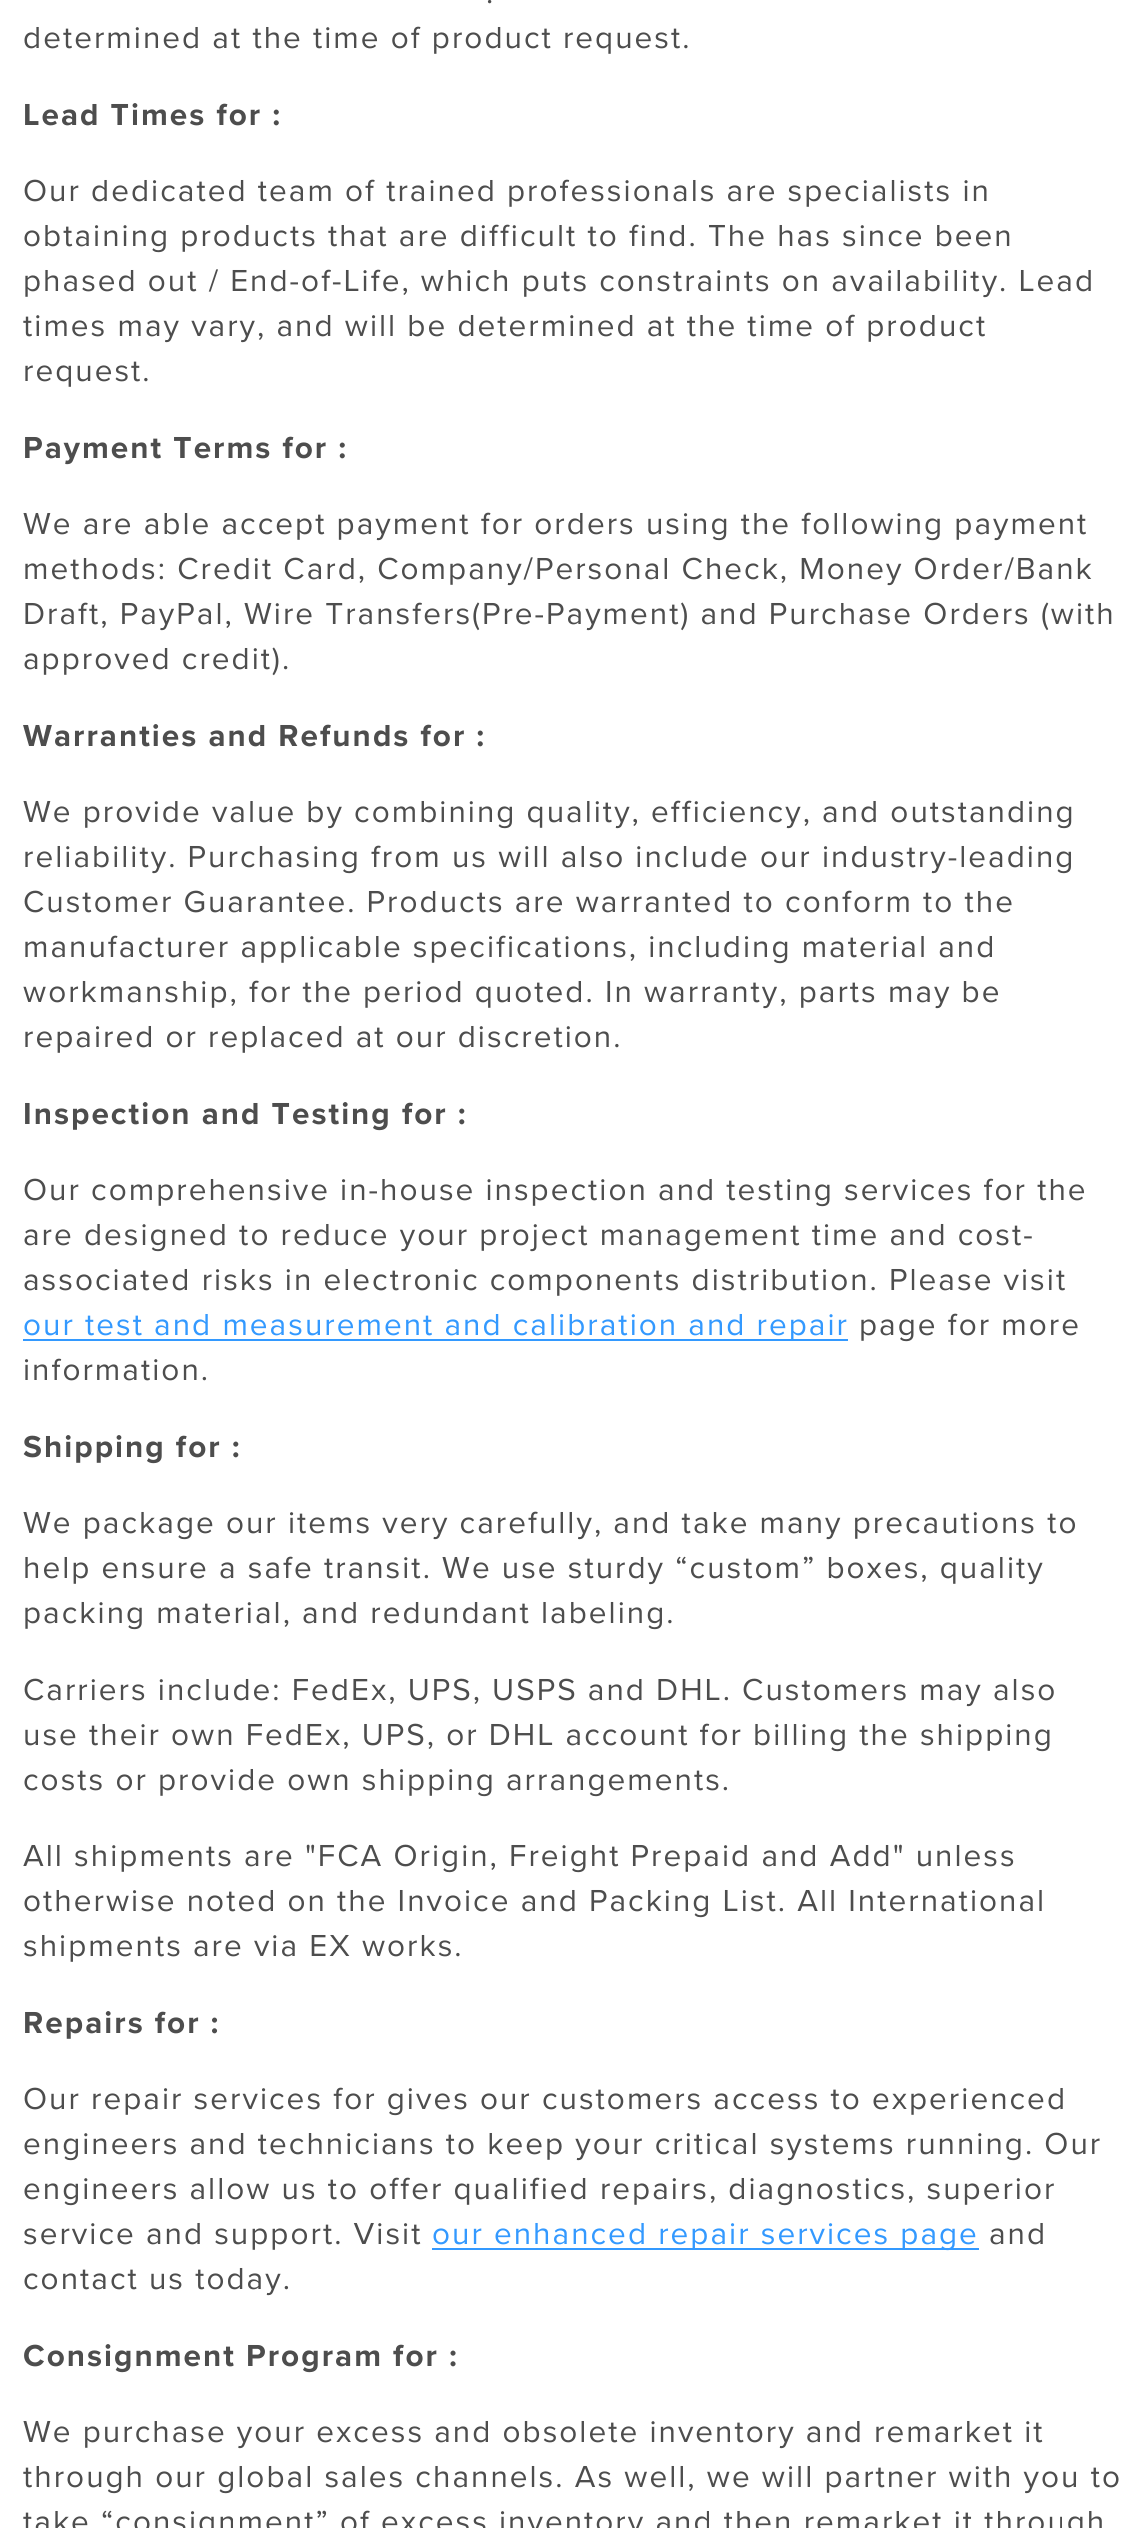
#include <cairo.h>
#include <math.h>
#include <stddef.h>


static void set_color(cairo_t *cr, unsigned color) {
    cairo_set_source_rgb(cr, (color >> 16) / 255.0, (color >> 8 & 255) / 255.0, (color & 255) / 255.0);
}

static void draw_spaced(cairo_t *cr, double x, double y, const char *s, double letter, double word) {
    cairo_move_to(cr, x, y);
    while (*s) {
        char ch[5] = {0};
        int n = 0;
        do ch[n++] = *s++; while ((*s & 0xC0) == 0x80);
        cairo_show_text(cr, ch);
        cairo_rel_move_to(cr, letter + word * (*ch == ' '), 0);
    }
}

static void fill_rect(cairo_t *cr, double x, double y, double w, double h, unsigned color) {
    set_color(cr, color);
    cairo_rectangle(cr, x, y, w, h);
    cairo_fill(cr);
}

int main(void) {
    cairo_surface_t *surface = cairo_image_surface_create(CAIRO_FORMAT_RGB24, 1145, 2528);
    cairo_t *cr = cairo_create(surface);
    cairo_font_options_t *options = cairo_font_options_create();
    cairo_font_options_set_hint_metrics(options, CAIRO_HINT_METRICS_OFF);
    cairo_font_options_set_hint_style(options, CAIRO_HINT_STYLE_NONE);
    cairo_set_font_options(cr, options);
    cairo_set_miter_limit(cr, 4);
    set_color(cr, 0xFFFFFF);
    cairo_paint(cr);
    cairo_select_font_face(cr, "Proxima Nova", CAIRO_FONT_SLANT_NORMAL, CAIRO_FONT_WEIGHT_NORMAL);
    cairo_set_font_size(cr, 31.5);
    set_color(cr, 0x4D4D4D);
    draw_spaced(cr, 486, 3, ".", 2.02, 0);
    draw_spaced(cr, 23, 48, "determined at the time of product request.", 2.02, 0);
    cairo_select_font_face(cr, "Proxima Nova", CAIRO_FONT_SLANT_NORMAL, CAIRO_FONT_WEIGHT_BOLD);
    draw_spaced(cr, 23, 125, "Lead Times for :", 2.02, 0);
    cairo_select_font_face(cr, "Proxima Nova", CAIRO_FONT_SLANT_NORMAL, CAIRO_FONT_WEIGHT_NORMAL);
    draw_spaced(cr, 23, 201, "Our dedicated team of trained professionals are specialists in", 2.02, 0);
    draw_spaced(cr, 23, 246, "obtaining products that are difficult to find. The has since been", 2.02, 0);
    draw_spaced(cr, 23, 291, "phased out / End-of-Life, which puts constraints on availability. Lead", 2.02, 0);
    draw_spaced(cr, 23, 336, "times may vary, and will be determined at the time of product", 2.02, 0);
    draw_spaced(cr, 23, 381, "request.", 2.02, 0);
    cairo_select_font_face(cr, "Proxima Nova", CAIRO_FONT_SLANT_NORMAL, CAIRO_FONT_WEIGHT_BOLD);
    draw_spaced(cr, 23, 458, "Payment Terms for :", 2.02, 0);
    cairo_select_font_face(cr, "Proxima Nova", CAIRO_FONT_SLANT_NORMAL, CAIRO_FONT_WEIGHT_NORMAL);
    draw_spaced(cr, 23, 534, "We are able accept payment for orders using the following payment", 2.02, 0);
    draw_spaced(cr, 23, 579, "methods: Credit Card, Company/Personal Check, Money Order/Bank", 2.02, 0);
    draw_spaced(cr, 23, 624, "Draft, PayPal, Wire Transfers(Pre-Payment) and Purchase Orders (with", 2.02, 0);
    draw_spaced(cr, 23, 669, "approved credit).", 2.02, 0);
    cairo_select_font_face(cr, "Proxima Nova", CAIRO_FONT_SLANT_NORMAL, CAIRO_FONT_WEIGHT_BOLD);
    draw_spaced(cr, 23, 746, "Warranties and Refunds for :", 2.02, 0);
    cairo_select_font_face(cr, "Proxima Nova", CAIRO_FONT_SLANT_NORMAL, CAIRO_FONT_WEIGHT_NORMAL);
    draw_spaced(cr, 23, 822, "We provide value by combining quality, efficiency, and outstanding", 2.02, 0);
    draw_spaced(cr, 23, 867, "reliability. Purchasing from us will also include our industry-leading", 2.02, 0);
    draw_spaced(cr, 23, 912, "Customer Guarantee. Products are warranted to conform to the", 2.02, 0);
    draw_spaced(cr, 23, 957, "manufacturer applicable specifications, including material and", 2.02, 0);
    draw_spaced(cr, 23, 1002, "workmanship, for the period quoted. In warranty, parts may be", 2.02, 0);
    draw_spaced(cr, 23, 1047, "repaired or replaced at our discretion.", 2.02, 0);
    cairo_select_font_face(cr, "Proxima Nova", CAIRO_FONT_SLANT_NORMAL, CAIRO_FONT_WEIGHT_BOLD);
    draw_spaced(cr, 23, 1124, "Inspection and Testing for :", 2.02, 0);
    cairo_select_font_face(cr, "Proxima Nova", CAIRO_FONT_SLANT_NORMAL, CAIRO_FONT_WEIGHT_NORMAL);
    draw_spaced(cr, 23, 1200, "Our comprehensive in-house inspection and testing services for the", 2.02, 0);
    draw_spaced(cr, 23, 1245, "are designed to reduce your project management time and cost-", 2.02, 0);
    draw_spaced(cr, 23, 1290, "associated risks in electronic components distribution. Please visit", 2.02, 0);
    fill_rect(cr, 23, 1339, 825, 2, 0x3399FF);
    draw_spaced(cr, 23, 1335, "our test and measurement and calibration and repair", 2.02, 0);
    set_color(cr, 0x4D4D4D);
    draw_spaced(cr, 859, 1335, "page for more", 2.02, 0);
    draw_spaced(cr, 23, 1380, "information.", 2.02, 0);
    cairo_select_font_face(cr, "Proxima Nova", CAIRO_FONT_SLANT_NORMAL, CAIRO_FONT_WEIGHT_BOLD);
    draw_spaced(cr, 23, 1457, "Shipping for :", 2.02, 0);
    cairo_select_font_face(cr, "Proxima Nova", CAIRO_FONT_SLANT_NORMAL, CAIRO_FONT_WEIGHT_NORMAL);
    draw_spaced(cr, 23, 1533, "We package our items very carefully, and take many precautions to", 2.02, 0);
    draw_spaced(cr, 23, 1578, "help ensure a safe transit. We use sturdy “custom” boxes, quality", 2.02, 0);
    draw_spaced(cr, 23, 1623, "packing material, and redundant labeling.", 2.02, 0);
    draw_spaced(cr, 23, 1700, "Carriers include: FedEx, UPS, USPS and DHL. Customers may also", 2.02, 0);
    draw_spaced(cr, 23, 1745, "use their own FedEx, UPS, or DHL account for billing the shipping", 2.02, 0);
    draw_spaced(cr, 23, 1790, "costs or provide own shipping arrangements.", 2.02, 0);
    draw_spaced(cr, 23, 1866, "All shipments are \"FCA Origin, Freight Prepaid and Add\" unless", 2.02, 0);
    draw_spaced(cr, 23, 1911, "otherwise noted on the Invoice and Packing List. All International", 2.02, 0);
    draw_spaced(cr, 23, 1956, "shipments are via EX works.", 2.02, 0);
    cairo_select_font_face(cr, "Proxima Nova", CAIRO_FONT_SLANT_NORMAL, CAIRO_FONT_WEIGHT_BOLD);
    draw_spaced(cr, 23, 2033, "Repairs for :", 2.02, 0);
    cairo_select_font_face(cr, "Proxima Nova", CAIRO_FONT_SLANT_NORMAL, CAIRO_FONT_WEIGHT_NORMAL);
    draw_spaced(cr, 23, 2109, "Our repair services for gives our customers access to experienced", 2.02, 0);
    draw_spaced(cr, 23, 2154, "engineers and technicians to keep your critical systems running. Our", 2.02, 0);
    draw_spaced(cr, 23, 2199, "engineers allow us to offer qualified repairs, diagnostics, superior", 2.02, 0);
    draw_spaced(cr, 23, 2244, "service and support. Visit", 2.02, 0);
    fill_rect(cr, 432, 2248, 547, 2, 0x3399FF);
    draw_spaced(cr, 432, 2244, "our enhanced repair services page", 2.02, 0);
    set_color(cr, 0x4D4D4D);
    draw_spaced(cr, 989, 2244, "and", 2.02, 0);
    draw_spaced(cr, 23, 2289, "contact us today.", 2.02, 0);
    cairo_select_font_face(cr, "Proxima Nova", CAIRO_FONT_SLANT_NORMAL, CAIRO_FONT_WEIGHT_BOLD);
    draw_spaced(cr, 23, 2366, "Consignment Program for :", 2.02, 0);
    cairo_select_font_face(cr, "Proxima Nova", CAIRO_FONT_SLANT_NORMAL, CAIRO_FONT_WEIGHT_NORMAL);
    draw_spaced(cr, 23, 2442, "We purchase your excess and obsolete inventory and remarket it", 2.02, 0);
    draw_spaced(cr, 23, 2487, "through our global sales channels. As well, we will partner with you to", 2.02, 0);
    draw_spaced(cr, 23, 2532, "take “consignment” of excess inventory and then remarket it through", 2.02, 0);
    cairo_surface_write_to_png(surface, "output.png");
    cairo_font_options_destroy(options);
    cairo_destroy(cr);
    cairo_surface_destroy(surface);
    return 0;
}
